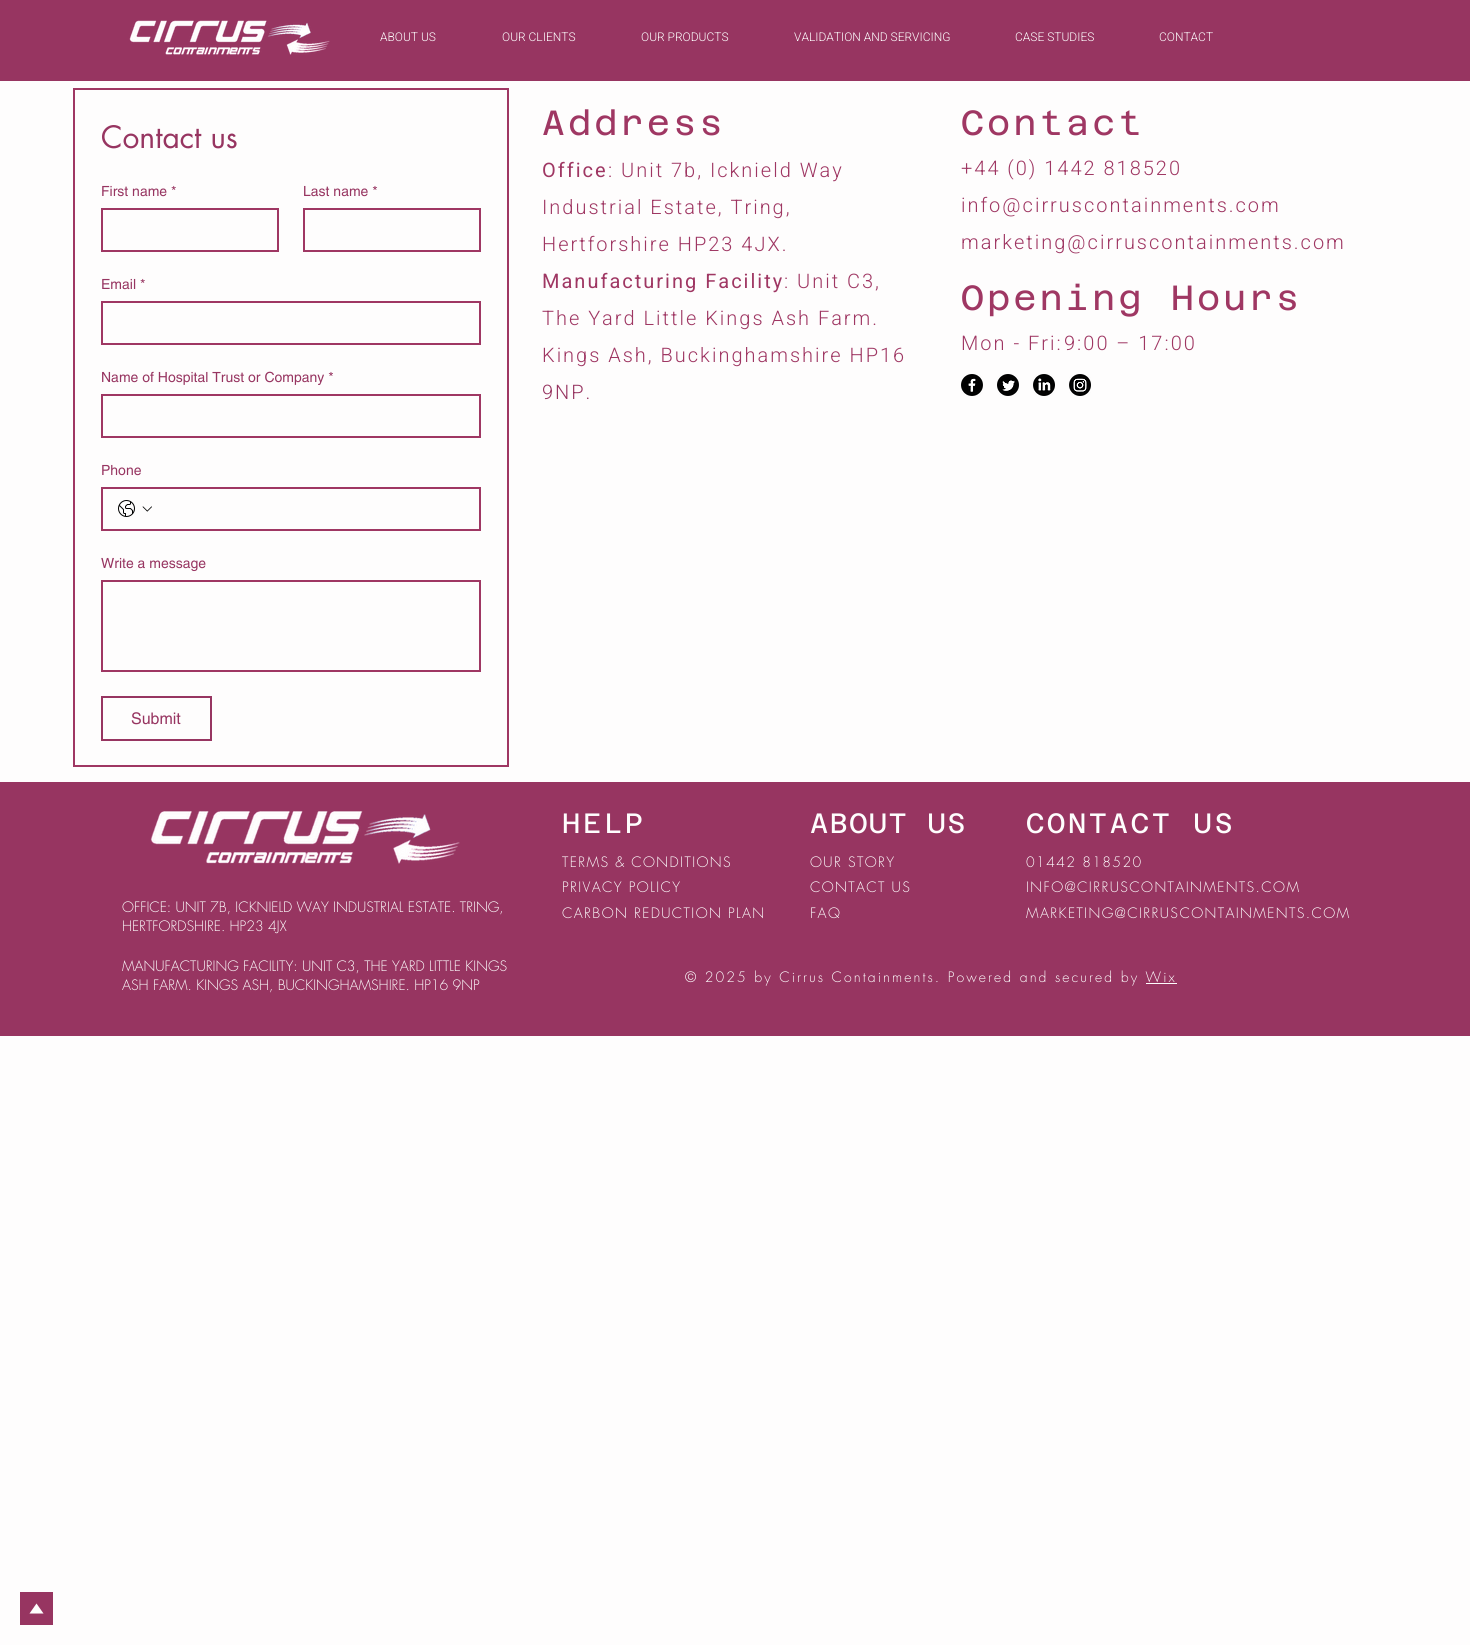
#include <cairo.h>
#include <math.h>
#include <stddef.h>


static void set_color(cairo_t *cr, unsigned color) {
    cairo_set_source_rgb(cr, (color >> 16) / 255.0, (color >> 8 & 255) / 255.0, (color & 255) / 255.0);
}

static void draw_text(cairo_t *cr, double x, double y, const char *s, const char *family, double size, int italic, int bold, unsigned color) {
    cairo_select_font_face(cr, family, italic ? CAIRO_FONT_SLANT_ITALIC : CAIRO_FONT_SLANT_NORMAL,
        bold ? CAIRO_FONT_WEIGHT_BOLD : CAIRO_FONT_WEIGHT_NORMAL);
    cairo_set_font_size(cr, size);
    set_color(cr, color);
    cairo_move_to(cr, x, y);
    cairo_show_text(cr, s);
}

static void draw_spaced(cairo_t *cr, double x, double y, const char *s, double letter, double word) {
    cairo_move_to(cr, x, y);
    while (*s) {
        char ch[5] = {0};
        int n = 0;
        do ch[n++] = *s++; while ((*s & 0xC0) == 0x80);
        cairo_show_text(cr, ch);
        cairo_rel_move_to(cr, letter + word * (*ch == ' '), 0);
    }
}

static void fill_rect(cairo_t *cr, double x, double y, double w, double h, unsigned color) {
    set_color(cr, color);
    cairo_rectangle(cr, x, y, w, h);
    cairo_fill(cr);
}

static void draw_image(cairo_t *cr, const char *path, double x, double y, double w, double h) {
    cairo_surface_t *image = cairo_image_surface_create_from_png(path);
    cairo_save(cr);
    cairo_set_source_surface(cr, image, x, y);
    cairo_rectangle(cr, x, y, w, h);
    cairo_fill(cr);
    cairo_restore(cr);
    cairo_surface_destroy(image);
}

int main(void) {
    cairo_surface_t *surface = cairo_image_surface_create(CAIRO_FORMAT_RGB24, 1470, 1645);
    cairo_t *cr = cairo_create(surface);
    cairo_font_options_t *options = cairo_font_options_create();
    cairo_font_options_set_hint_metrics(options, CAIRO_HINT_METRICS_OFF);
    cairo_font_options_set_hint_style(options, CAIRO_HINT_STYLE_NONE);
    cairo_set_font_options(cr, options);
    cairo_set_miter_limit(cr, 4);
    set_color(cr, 0xFEFDFD);
    cairo_paint(cr);
    fill_rect(cr, 0, 0, 1470, 81, 0x973561);
    draw_image(cr, "assets/img1.png", 129, 20, 201, 35);
    draw_text(cr, 380, 41, "ABOUT US", "Heebo Light", 12, 0, 0, 0xFEFDFD);
    draw_text(cr, 502, 41, "OUR CLIENTS", "Heebo Light", 12, 0, 0, 0xFEFDFD);
    draw_text(cr, 641, 41, "OUR PRODUCTS", "Heebo Light", 12, 0, 0, 0xFEFDFD);
    draw_text(cr, 794, 41, "VALIDATION AND SERVICING", "Heebo Light", 12, 0, 0, 0xFEFDFD);
    draw_text(cr, 1015, 41, "CASE STUDIES", "Heebo Light", 12, 0, 0, 0xFEFDFD);
    draw_text(cr, 1159, 41, "CONTACT", "Heebo Light", 12, 0, 0, 0xFEFDFD);
    cairo_rectangle(cr, 74, 89, 434, 677);
    set_color(cr, 0x9F3763);
    cairo_stroke(cr);
    draw_text(cr, 101, 148, "Contact us", "futura", 30, 0, 0, 0x973561);
    draw_text(cr, 101, 196, "First name *", "helvetica", 14, 0, 0, 0x973561);
    draw_text(cr, 303, 196, "Last name *", "helvetica", 14, 0, 0, 0x973561);
    cairo_rectangle(cr, 102, 209, 176, 42);
    set_color(cr, 0x9F3763);
    cairo_stroke(cr);
    cairo_rectangle(cr, 304, 209, 176, 42);
    cairo_stroke(cr);
    draw_text(cr, 101, 289, "Email *", "helvetica", 14, 0, 0, 0x973561);
    cairo_rectangle(cr, 102, 302, 378, 42);
    set_color(cr, 0x9F3763);
    cairo_stroke(cr);
    draw_text(cr, 101, 382, "Name of Hospital Trust or Company *", "helvetica", 14, 0, 0, 0x973561);
    cairo_rectangle(cr, 102, 395, 378, 42);
    set_color(cr, 0x9F3763);
    cairo_stroke(cr);
    draw_text(cr, 101, 475, "Phone", "helvetica", 14, 0, 0, 0x973561);
    cairo_rectangle(cr, 102, 488, 378, 42);
    set_color(cr, 0x9F3763);
    cairo_stroke(cr);
    draw_image(cr, "assets/img2.png", 118, 500, 17, 17);
    draw_image(cr, "assets/img3.png", 142, 506, 10, 6);
    draw_text(cr, 101, 568, "Write a message", "helvetica", 14, 0, 0, 0x973561);
    cairo_rectangle(cr, 102, 581, 378, 90);
    set_color(cr, 0x9F3763);
    cairo_stroke(cr);
    cairo_rectangle(cr, 102, 697, 109, 43);
    set_color(cr, 0x973561);
    cairo_stroke(cr);
    draw_text(cr, 131, 724, "Submit", "helvetica", 16, 0, 0, 0x973561);
    cairo_select_font_face(cr, "Azeret Mono", CAIRO_FONT_SLANT_NORMAL, CAIRO_FONT_WEIGHT_NORMAL);
    cairo_set_font_size(cr, 35);
    set_color(cr, 0x9F3763);
    draw_spaced(cr, 542, 135, "Address", 3.5, 0);
    draw_spaced(cr, 961, 135, "Contact", 3.5, 0);
    cairo_select_font_face(cr, "Heebo", CAIRO_FONT_SLANT_NORMAL, CAIRO_FONT_WEIGHT_NORMAL);
    cairo_set_font_size(cr, 20);
    draw_spaced(cr, 542, 177, "Office", 2, 0);
    cairo_select_font_face(cr, "Heebo Light", CAIRO_FONT_SLANT_NORMAL, CAIRO_FONT_WEIGHT_NORMAL);
    draw_spaced(cr, 608, 177, ": Unit 7b, Icknield Way", 2, 0);
    draw_spaced(cr, 542, 214, "Industrial Estate, Tring,", 2, 0);
    draw_spaced(cr, 542, 251, "Hertforshire HP23 4JX.", 2, 0);
    cairo_select_font_face(cr, "Heebo", CAIRO_FONT_SLANT_NORMAL, CAIRO_FONT_WEIGHT_NORMAL);
    draw_spaced(cr, 542, 288, "Manufacturing Facility", 2, 0);
    cairo_select_font_face(cr, "Heebo Light", CAIRO_FONT_SLANT_NORMAL, CAIRO_FONT_WEIGHT_NORMAL);
    draw_spaced(cr, 784, 288, ": Unit C3,", 2, 0);
    draw_spaced(cr, 542, 325, "The Yard Little Kings Ash Farm.", 2, 0);
    draw_spaced(cr, 542, 362, "Kings Ash, Buckinghamshire HP16", 2, 0);
    set_color(cr, 0x973561);
    draw_spaced(cr, 542, 399, "9NP.", 2, 0);
    set_color(cr, 0x9F3763);
    draw_spaced(cr, 961, 175, "+44 (0) 1442 818520", 2, 0);
    draw_spaced(cr, 961, 212, "info@cirruscontainments.com", 2, 0);
    draw_spaced(cr, 961, 249, "marketing@cirruscontainments.com", 2, 0);
    cairo_select_font_face(cr, "Azeret Mono", CAIRO_FONT_SLANT_NORMAL, CAIRO_FONT_WEIGHT_NORMAL);
    cairo_set_font_size(cr, 35);
    draw_spaced(cr, 961, 310, "Opening Hours", 3.5, 0);
    cairo_select_font_face(cr, "Heebo Light", CAIRO_FONT_SLANT_NORMAL, CAIRO_FONT_WEIGHT_NORMAL);
    cairo_set_font_size(cr, 20);
    draw_spaced(cr, 961, 350, "Mon - Fri:", 2, 0);
    draw_spaced(cr, 1064, 350, "9:00 – 17:00", 2, 0);
    draw_image(cr, "assets/img4.png", 961, 374, 22, 22);
    draw_image(cr, "assets/img5.png", 997, 374, 22, 22);
    draw_image(cr, "assets/img6.png", 1033, 374, 22, 22);
    draw_image(cr, "assets/img7.png", 1069, 374, 22, 22);
    fill_rect(cr, 0, 782, 1470, 254, 0x973561);
    draw_image(cr, "assets/img8.png", 150, 811, 310, 53);
    cairo_select_font_face(cr, "Azeret Mono", CAIRO_FONT_SLANT_NORMAL, CAIRO_FONT_WEIGHT_NORMAL);
    cairo_set_font_size(cr, 28);
    set_color(cr, 0xFEFDFD);
    draw_spaced(cr, 562, 833, "HELP", 2.75, 0);
    draw_spaced(cr, 810, 833, "ABOUT US", 1.4, 0);
    draw_spaced(cr, 1026, 833, "CONTACT US", 2.75, 0);
    cairo_select_font_face(cr, "futura Light", CAIRO_FONT_SLANT_NORMAL, CAIRO_FONT_WEIGHT_NORMAL);
    cairo_set_font_size(cr, 14);
    draw_spaced(cr, 562, 867, "TERMS & CONDITIONS", 1.4, 0);
    draw_spaced(cr, 562, 892, "PRIVACY POLICY", 1.4, 0);
    draw_spaced(cr, 562, 918, "CARBON REDUCTION PLAN", 1.4, 0);
    draw_spaced(cr, 810, 867, "OUR STORY", 1.4, 0);
    draw_spaced(cr, 810, 892, "CONTACT US", 1.4, 0);
    draw_spaced(cr, 810, 918, "FAQ", 1.4, 0);
    draw_spaced(cr, 1026, 867, "01442 818520", 1.4, 0);
    draw_spaced(cr, 1026, 892, "INFO@CIRRUSCONTAINMENTS.COM", 1.4, 0);
    draw_spaced(cr, 1026, 918, "MARKETING@CIRRUSCONTAINMENTS.COM", 1.4, 0);
    draw_text(cr, 122, 912, "OFFICE: UNIT 7B, ICKNIELD WAY INDUSTRIAL ESTATE. TRING,", "futura Light", 14, 0, 0, 0xFEFDFD);
    draw_text(cr, 122, 931, "HERTFORDSHIRE. HP23 4JX", "futura Light", 14, 0, 0, 0xFEFDFD);
    draw_text(cr, 122, 971, "MANUFACTURING FACILITY: UNIT C3, THE YARD LITTLE KINGS", "futura Light", 14, 0, 0, 0xFEFDFD);
    draw_text(cr, 122, 990, "ASH FARM. KINGS ASH, BUCKINGHAMSHIRE. HP16 9NP", "futura Light", 14, 0, 0, 0xFEFDFD);
    draw_spaced(cr, 685, 982, "© 2025 by Cirrus Containments. Powered and secured by Wix", 2.1, 0);
    fill_rect(cr, 1146, 983, 31, 1, 0xFEFDFD);
    set_color(cr, 0x973561);
    cairo_new_path(cr);
    cairo_move_to(cr, 20, 1592);
    cairo_line_to(cr, 20, 1625);
    cairo_line_to(cr, 53, 1625);
    cairo_line_to(cr, 53, 1592);
    cairo_close_path(cr);
    cairo_move_to(cr, 29.5, 1613.5);
    cairo_line_to(cr, 36.5, 1603.5);
    cairo_line_to(cr, 43.5, 1613.5);
    cairo_close_path(cr);
    cairo_fill(cr);
    cairo_surface_write_to_png(surface, "output.png");
    cairo_font_options_destroy(options);
    cairo_destroy(cr);
    cairo_surface_destroy(surface);
    return 0;
}
